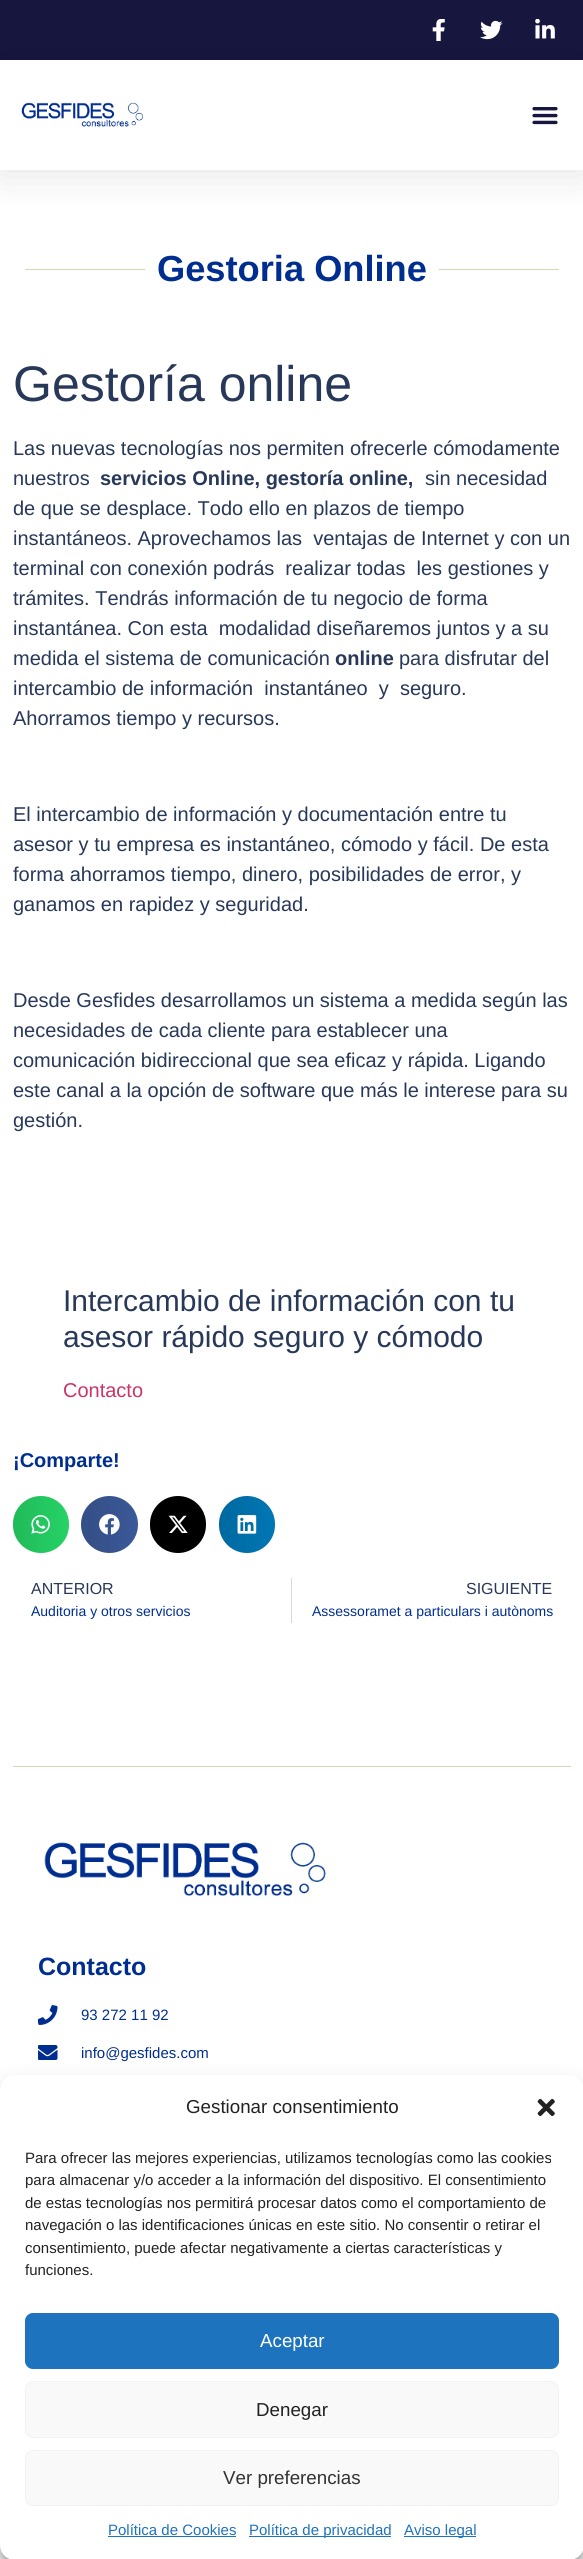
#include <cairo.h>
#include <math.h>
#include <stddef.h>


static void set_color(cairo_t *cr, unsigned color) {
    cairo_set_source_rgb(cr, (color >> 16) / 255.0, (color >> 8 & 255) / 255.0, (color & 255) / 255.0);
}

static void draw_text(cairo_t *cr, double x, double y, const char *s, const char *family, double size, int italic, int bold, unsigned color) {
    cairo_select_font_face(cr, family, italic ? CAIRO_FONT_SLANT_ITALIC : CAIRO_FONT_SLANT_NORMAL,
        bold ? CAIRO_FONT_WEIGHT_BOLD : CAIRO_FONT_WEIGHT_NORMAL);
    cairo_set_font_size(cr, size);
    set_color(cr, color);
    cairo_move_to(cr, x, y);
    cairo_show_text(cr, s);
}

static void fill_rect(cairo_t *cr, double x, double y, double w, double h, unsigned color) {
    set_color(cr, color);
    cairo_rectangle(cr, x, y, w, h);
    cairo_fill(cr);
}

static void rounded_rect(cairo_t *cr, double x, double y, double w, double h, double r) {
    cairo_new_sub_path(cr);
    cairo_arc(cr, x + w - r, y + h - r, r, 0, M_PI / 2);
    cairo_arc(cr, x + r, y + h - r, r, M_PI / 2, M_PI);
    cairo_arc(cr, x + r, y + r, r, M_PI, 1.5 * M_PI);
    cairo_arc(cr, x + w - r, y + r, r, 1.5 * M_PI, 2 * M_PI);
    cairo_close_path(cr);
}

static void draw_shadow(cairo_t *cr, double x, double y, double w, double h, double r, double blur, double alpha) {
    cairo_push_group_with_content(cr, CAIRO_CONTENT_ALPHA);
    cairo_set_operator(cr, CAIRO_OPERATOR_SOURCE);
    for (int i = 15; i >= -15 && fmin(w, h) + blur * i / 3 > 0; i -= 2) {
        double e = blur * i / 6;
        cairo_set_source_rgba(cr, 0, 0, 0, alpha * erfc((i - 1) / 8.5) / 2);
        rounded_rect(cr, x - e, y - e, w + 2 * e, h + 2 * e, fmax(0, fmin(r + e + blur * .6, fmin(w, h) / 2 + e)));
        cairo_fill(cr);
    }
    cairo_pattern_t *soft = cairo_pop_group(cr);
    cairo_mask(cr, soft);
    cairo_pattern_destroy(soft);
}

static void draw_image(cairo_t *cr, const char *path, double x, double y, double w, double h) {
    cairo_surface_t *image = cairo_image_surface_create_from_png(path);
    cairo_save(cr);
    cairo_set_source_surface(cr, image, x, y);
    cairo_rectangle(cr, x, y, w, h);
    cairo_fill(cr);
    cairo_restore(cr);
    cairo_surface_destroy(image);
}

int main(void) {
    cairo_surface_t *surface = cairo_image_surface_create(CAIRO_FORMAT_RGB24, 583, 2559);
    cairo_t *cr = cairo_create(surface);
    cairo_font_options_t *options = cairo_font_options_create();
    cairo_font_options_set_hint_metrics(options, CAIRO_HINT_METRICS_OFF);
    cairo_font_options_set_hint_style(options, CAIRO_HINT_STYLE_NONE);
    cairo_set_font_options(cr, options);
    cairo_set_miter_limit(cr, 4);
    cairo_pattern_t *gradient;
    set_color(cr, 0xFFFFFF);
    cairo_paint(cr);
    fill_rect(cr, 0, 0, 583, 60, 0x16163F);
    draw_image(cr, "assets/img1.png", 432, 19, 13, 22);
    draw_image(cr, "assets/img2.png", 480, 20, 23, 20);
    draw_image(cr, "assets/img3.png", 535, 19, 20, 20);
    cairo_save(cr);
    cairo_set_fill_rule(cr, CAIRO_FILL_RULE_EVEN_ODD);
    cairo_new_path(cr);
    cairo_move_to(cr, 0, 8);
    cairo_line_to(cr, 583, 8);
    cairo_line_to(cr, 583, 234);
    cairo_line_to(cr, 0, 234);
    cairo_close_path(cr);
    cairo_move_to(cr, 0, 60);
    cairo_line_to(cr, 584, 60);
    cairo_line_to(cr, 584, 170);
    cairo_line_to(cr, 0, 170);
    cairo_close_path(cr);
    cairo_clip(cr);
    set_color(cr, 0x000000);
    draw_shadow(cr, 0, 66, 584, 110, 0, 19, 0.1);
    cairo_restore(cr);
    draw_image(cr, "assets/img4.png", 21, 102, 122, 25);
    draw_image(cr, "assets/img5.png", 532, 107, 26, 18);
    fill_rect(cr, 25, 269, 120, 1, 0xD9D3B8);
    draw_text(cr, 157, 281, "Gestoria Online", "Liberation Sans", 36.25, 0, 1, 0x002E90);
    fill_rect(cr, 439, 269, 120, 1, 0xD9D3B8);
    draw_text(cr, 13, 401, "Gestoría online", "Liberation Sans", 50, 0, 0, 0x283859);
    draw_text(cr, 13, 455, "Las nuevas tecnologías nos permiten ofrecerle cómodamente", "Liberation Sans", 20, 0, 0, 0x283859);
    draw_text(cr, 13, 485, "nuestros", "Liberation Sans", 20, 0, 0, 0x283859);
    draw_text(cr, 100, 485, "servicios Online, gestoría online,", "Liberation Sans", 20, 0, 1, 0x283859);
    draw_text(cr, 425, 485, "sin necesidad", "Liberation Sans", 20, 0, 0, 0x283859);
    draw_text(cr, 13, 515, "de que se desplace. Todo ello en plazos de tiempo", "Liberation Sans", 20, 0, 0, 0x283859);
    draw_text(cr, 13, 545, "instantáneos. Aprovechamos las  ventajas de Internet y con un", "Liberation Sans", 20, 0, 0, 0x283859);
    draw_text(cr, 13, 575, "terminal con conexión podrás  realizar todas  les gestiones y", "Liberation Sans", 20, 0, 0, 0x283859);
    draw_text(cr, 13, 605, "trámites. Tendrás información de tu negocio de forma", "Liberation Sans", 20, 0, 0, 0x283859);
    draw_text(cr, 13, 635, "instantánea. Con esta  modalidad diseñaremos juntos y a su", "Liberation Sans", 20, 0, 0, 0x283859);
    draw_text(cr, 13, 665, "medida el sistema de comunicación", "Liberation Sans", 20, 0, 0, 0x283859);
    draw_text(cr, 335, 665, "online", "Liberation Sans", 20, 0, 1, 0x283859);
    draw_text(cr, 399, 665, "para disfrutar del", "Liberation Sans", 20, 0, 0, 0x283859);
    draw_text(cr, 13, 695, "intercambio de información  instantáneo  y  seguro.", "Liberation Sans", 20, 0, 0, 0x283859);
    draw_text(cr, 13, 725, "Ahorramos tiempo y recursos.", "Liberation Sans", 20, 0, 0, 0x283859);
    draw_text(cr, 13, 821, "El intercambio de información y documentación entre tu", "Liberation Sans", 20, 0, 0, 0x283859);
    draw_text(cr, 13, 851, "asesor y tu empresa es instantáneo, cómodo y fácil. De esta", "Liberation Sans", 20, 0, 0, 0x283859);
    draw_text(cr, 13, 881, "forma ahorramos tiempo, dinero, posibilidades de error, y", "Liberation Sans", 20, 0, 0, 0x283859);
    draw_text(cr, 13, 911, "ganamos en rapidez y seguridad.", "Liberation Sans", 20, 0, 0, 0x283859);
    draw_text(cr, 13, 1007, "Desde Gesfides desarrollamos un sistema a medida según las", "Liberation Sans", 20, 0, 0, 0x283859);
    draw_text(cr, 13, 1037, "necesidades de cada cliente para establecer una", "Liberation Sans", 20, 0, 0, 0x283859);
    draw_text(cr, 13, 1067, "comunicación bidireccional que sea eficaz y rápida. Ligando", "Liberation Sans", 20, 0, 0, 0x283859);
    draw_text(cr, 13, 1097, "este canal a la opción de software que más le interese para su", "Liberation Sans", 20, 0, 0, 0x283859);
    draw_text(cr, 13, 1127, "gestión.", "Liberation Sans", 20, 0, 0, 0x283859);
    draw_text(cr, 63, 1311, "Intercambio de información con tu", "Liberation Sans", 30, 0, 0, 0x283859);
    draw_text(cr, 63, 1347, "asesor rápido seguro y cómodo", "Liberation Sans", 30, 0, 0, 0x283859);
    draw_text(cr, 63, 1397, "Contacto", "Liberation Sans", 20, 0, 0, 0xCC3366);
    draw_text(cr, 13, 1467, "¡Comparte!", "Liberation Sans", 20, 0, 1, 0x002E90);
    set_color(cr, 0x25D366);
    rounded_rect(cr, 13, 1496, 56, 57, 28);
    cairo_fill(cr);
    gradient = cairo_pattern_create_linear(13, 1524, 69, 1524);
    cairo_pattern_add_color_stop_rgba(gradient, 0, 0, 0, 0, 0.12);
    cairo_pattern_add_color_stop_rgba(gradient, 1, 0, 0, 0, 0);
    cairo_set_source(cr, gradient);
    cairo_pattern_destroy(gradient);
    rounded_rect(cr, 13, 1496, 56, 57, 28);
    cairo_fill(cr);
    draw_image(cr, "assets/img6.png", 31, 1515, 19, 19);
    set_color(cr, 0x3B5998);
    cairo_arc(cr, 109.5, 1524.5, 28.5, 0, 2 * M_PI);
    cairo_fill(cr);
    gradient = cairo_pattern_create_linear(81, 1524, 138, 1524);
    cairo_pattern_add_color_stop_rgba(gradient, 0, 0, 0, 0, 0.12);
    cairo_pattern_add_color_stop_rgba(gradient, 1, 0, 0, 0, 0);
    cairo_set_source(cr, gradient);
    cairo_pattern_destroy(gradient);
    cairo_arc(cr, 109.5, 1524.5, 28.5, 0, 2 * M_PI);
    cairo_fill(cr);
    draw_image(cr, "assets/img7.png", 99, 1514, 21, 21);
    set_color(cr, 0x000000);
    rounded_rect(cr, 150, 1496, 56, 57, 28);
    cairo_fill(cr);
    gradient = cairo_pattern_create_linear(150, 1524, 206, 1524);
    cairo_pattern_add_color_stop_rgba(gradient, 0, 0, 0, 0, 0.12);
    cairo_pattern_add_color_stop_rgba(gradient, 1, 0, 0, 0, 0);
    cairo_set_source(cr, gradient);
    cairo_pattern_destroy(gradient);
    rounded_rect(cr, 150, 1496, 56, 57, 28);
    cairo_fill(cr);
    draw_image(cr, "assets/img8.png", 168, 1515, 20, 18);
    set_color(cr, 0x0077B5);
    rounded_rect(cr, 219, 1496, 56, 57, 28);
    cairo_fill(cr);
    gradient = cairo_pattern_create_linear(219, 1524, 275, 1524);
    cairo_pattern_add_color_stop_rgba(gradient, 0, 0, 0, 0, 0.12);
    cairo_pattern_add_color_stop_rgba(gradient, 1, 0, 0, 0, 0);
    cairo_set_source(cr, gradient);
    cairo_pattern_destroy(gradient);
    rounded_rect(cr, 219, 1496, 56, 57, 28);
    cairo_fill(cr);
    draw_image(cr, "assets/img9.png", 237, 1515, 20, 19);
    draw_text(cr, 31, 1594, "ANTERIOR", "Liberation Sans", 16, 0, 0, 0x283859);
    draw_text(cr, 31, 1616, "Auditoria y otros servicios", "Liberation Sans", 14, 0, 0, 0x002E90);
    fill_rect(cr, 291, 1578, 1, 45, 0xD5D8DC);
    draw_text(cr, 466, 1594, "SIGUIENTE", "Liberation Sans", 16, 0, 0, 0x283859);
    draw_text(cr, 312, 1616, "Assessoramet a particulars i autònoms", "Liberation Sans", 14, 0, 0, 0x002E90);
    fill_rect(cr, 13, 1766, 558, 1, 0xD9D3B8);
    draw_image(cr, "assets/img10.png", 44, 1842, 282, 54);
    draw_text(cr, 38, 1975, "Contacto", "Liberation Sans", 25, 0, 1, 0x002E90);
    draw_image(cr, "assets/img11.png", 38, 2005, 20, 20);
    draw_text(cr, 81, 2020, "93 272 11 92", "Liberation Sans", 15, 0, 0, 0x002E90);
    draw_image(cr, "assets/img12.png", 38, 2045, 20, 15);
    draw_text(cr, 81, 2058, "info@gesfides.com", "Liberation Sans", 15, 0, 0, 0x002E90);
    set_color(cr, 0x000000);
    draw_shadow(cr, 0, 2083, 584, 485, 15, 4, 0.23);
    draw_shadow(cr, 0, 2088, 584, 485, 15, 12.5, 0.19);
    set_color(cr, 0xFFFFFF);
    rounded_rect(cr, 0, 2075, 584, 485, 15);
    cairo_fill(cr);
    draw_text(cr, 186, 2113, "Gestionar consentimiento", "Liberation Sans", 18.75, 0, 0, 0x222222);
    draw_image(cr, "assets/img13.png", 537, 2098, 18, 19);
    draw_text(cr, 25, 2163, "Para ofrecer las mejores experiencias, utilizamos tecnologías como las cookies", "Liberation Sans", 15, 0, 0, 0x222222);
    draw_text(cr, 25, 2185, "para almacenar y/o acceder a la información del dispositivo. El consentimiento", "Liberation Sans", 15, 0, 0, 0x222222);
    draw_text(cr, 25, 2208, "de estas tecnologías nos permitirá procesar datos como el comportamiento de", "Liberation Sans", 15, 0, 0, 0x222222);
    draw_text(cr, 25, 2230, "navegación o las identificaciones únicas en este sitio. No consentir o retirar el", "Liberation Sans", 15, 0, 0, 0x222222);
    draw_text(cr, 25, 2253, "consentimiento, puede afectar negativamente a ciertas características y", "Liberation Sans", 15, 0, 0, 0x222222);
    draw_text(cr, 25, 2275, "funciones.", "Liberation Sans", 15, 0, 0, 0x222222);
    set_color(cr, 0x1E73BE);
    rounded_rect(cr, 25.5, 2313.5, 533, 55, 7.5);
    cairo_fill_preserve(cr);
    cairo_set_line_width(cr, 1);
    cairo_stroke(cr);
    draw_text(cr, 260, 2347, "Aceptar", "Liberation Sans", 18.75, 0, 0, 0xFFFFFF);
    set_color(cr, 0xF9F9F9);
    rounded_rect(cr, 25.5, 2381.5, 533, 56, 7.5);
    cairo_fill_preserve(cr);
    set_color(cr, 0xF2F2F2);
    cairo_stroke(cr);
    draw_text(cr, 256, 2416, "Denegar", "Liberation Sans", 18.75, 0, 0, 0x222222);
    set_color(cr, 0xF9F9F9);
    rounded_rect(cr, 25.5, 2450.5, 533, 55, 7.5);
    cairo_fill_preserve(cr);
    set_color(cr, 0xF2F2F2);
    cairo_stroke(cr);
    draw_text(cr, 223, 2484, "Ver preferencias", "Liberation Sans", 18.75, 0, 0, 0x333333);
    draw_text(cr, 108, 2535, "Política de Cookies", "Liberation Sans", 15, 0, 0, 0x1E73BE);
    fill_rect(cr, 108, 2536, 128, 1, 0x1E73BE);
    fill_rect(cr, 249, 2536, 142, 1, 0x1E73BE);
    draw_text(cr, 249, 2535, "Política de privacidad", "Liberation Sans", 15, 0, 0, 0x1E73BE);
    fill_rect(cr, 404, 2536, 72, 1, 0x1E73BE);
    draw_text(cr, 404, 2535, "Aviso legal", "Liberation Sans", 15, 0, 0, 0x1E73BE);
    cairo_surface_write_to_png(surface, "output.png");
    cairo_font_options_destroy(options);
    cairo_destroy(cr);
    cairo_surface_destroy(surface);
    return 0;
}
